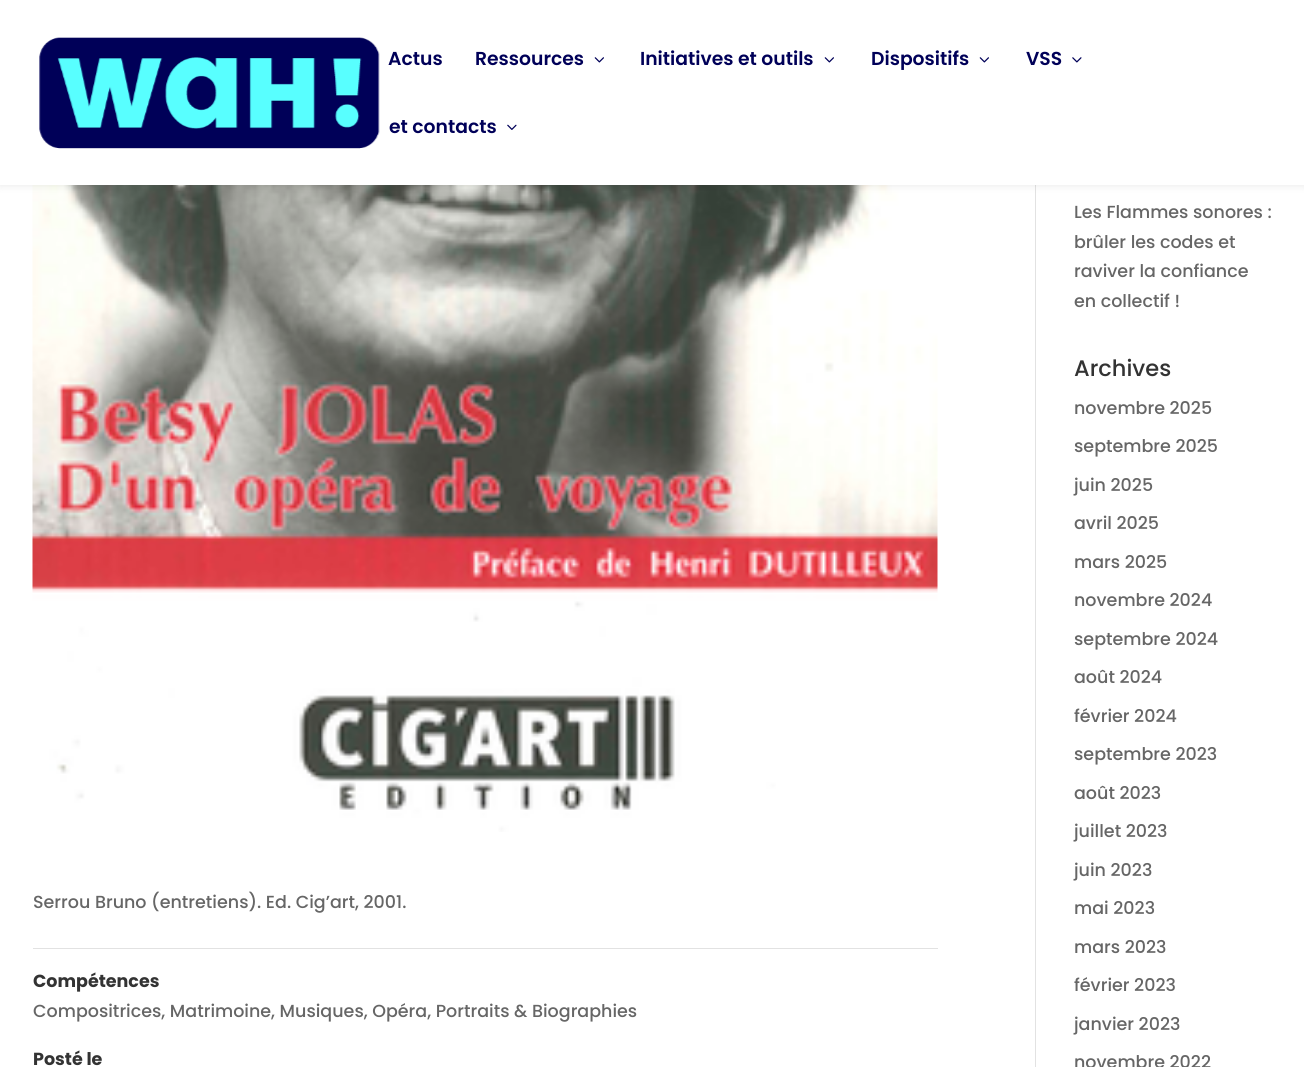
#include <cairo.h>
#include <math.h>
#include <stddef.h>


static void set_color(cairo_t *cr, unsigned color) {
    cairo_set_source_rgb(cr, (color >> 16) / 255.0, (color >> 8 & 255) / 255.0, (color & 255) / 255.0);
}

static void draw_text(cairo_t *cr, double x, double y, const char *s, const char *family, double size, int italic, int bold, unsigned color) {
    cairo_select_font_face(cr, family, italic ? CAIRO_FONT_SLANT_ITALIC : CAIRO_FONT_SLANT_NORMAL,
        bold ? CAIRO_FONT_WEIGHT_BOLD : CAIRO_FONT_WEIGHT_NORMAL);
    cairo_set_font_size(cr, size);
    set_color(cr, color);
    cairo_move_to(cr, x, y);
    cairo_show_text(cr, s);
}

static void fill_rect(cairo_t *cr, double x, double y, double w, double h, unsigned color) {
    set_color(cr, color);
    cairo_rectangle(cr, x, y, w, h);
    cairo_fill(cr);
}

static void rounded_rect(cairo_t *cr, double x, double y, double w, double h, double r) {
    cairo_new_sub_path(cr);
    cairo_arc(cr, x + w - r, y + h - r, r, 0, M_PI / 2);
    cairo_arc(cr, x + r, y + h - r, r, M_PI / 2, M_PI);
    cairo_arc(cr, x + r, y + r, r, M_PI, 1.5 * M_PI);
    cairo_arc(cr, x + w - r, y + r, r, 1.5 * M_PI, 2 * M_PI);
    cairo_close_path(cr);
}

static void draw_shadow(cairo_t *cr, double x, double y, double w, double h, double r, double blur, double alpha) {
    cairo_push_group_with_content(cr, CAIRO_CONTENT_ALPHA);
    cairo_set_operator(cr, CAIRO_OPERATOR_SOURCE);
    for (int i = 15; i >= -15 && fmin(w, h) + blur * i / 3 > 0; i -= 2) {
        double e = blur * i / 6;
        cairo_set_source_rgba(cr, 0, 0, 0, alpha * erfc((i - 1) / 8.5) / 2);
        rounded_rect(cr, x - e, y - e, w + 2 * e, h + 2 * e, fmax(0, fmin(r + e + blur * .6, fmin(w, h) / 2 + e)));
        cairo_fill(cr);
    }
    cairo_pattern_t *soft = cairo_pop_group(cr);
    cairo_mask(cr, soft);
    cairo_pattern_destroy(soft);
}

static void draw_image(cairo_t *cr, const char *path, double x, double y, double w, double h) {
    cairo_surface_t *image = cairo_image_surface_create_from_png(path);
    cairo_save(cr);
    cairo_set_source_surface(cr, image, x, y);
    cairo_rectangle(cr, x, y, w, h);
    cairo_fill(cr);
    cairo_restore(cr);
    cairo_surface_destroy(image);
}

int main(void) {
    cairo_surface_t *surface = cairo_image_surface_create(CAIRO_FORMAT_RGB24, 1304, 1067);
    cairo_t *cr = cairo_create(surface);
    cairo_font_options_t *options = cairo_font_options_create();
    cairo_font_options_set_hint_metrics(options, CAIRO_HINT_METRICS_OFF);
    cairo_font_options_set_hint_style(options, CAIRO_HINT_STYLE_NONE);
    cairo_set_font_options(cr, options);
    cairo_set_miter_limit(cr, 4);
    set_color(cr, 0xFFFFFF);
    cairo_paint(cr);
    fill_rect(cr, 1035, 185, 1, 882, 0xE2E2E2);
    draw_image(cr, "assets/img5.png", 32, 185, 906, 647);
    set_color(cr, 0x000000);
    draw_shadow(cr, 0, 0, 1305, 185, 0, 4.5, 0.1);
    fill_rect(cr, 0, 0, 1304, 185, 0xFFFFFF);
    draw_image(cr, "assets/img1.png", 39, 37, 341, 112);
    draw_text(cr, 388, 65, "Actus", "Poppins SemiBold", 18.75, 0, 0, 0x000058);
    draw_text(cr, 475, 65, "Ressources", "Poppins SemiBold", 18.75, 0, 0, 0x000058);
    draw_image(cr, "assets/img2.png", 594, 57, 10, 6);
    draw_text(cr, 640, 65, "Initiatives et outils", "Poppins SemiBold", 18.75, 0, 0, 0x000058);
    draw_image(cr, "assets/img2.png", 824, 57, 10, 6);
    draw_text(cr, 871, 65, "Dispositifs", "Poppins SemiBold", 18.75, 0, 0, 0x000058);
    draw_image(cr, "assets/img2.png", 979, 57, 10, 6);
    draw_text(cr, 1026, 65, "VSS", "Poppins SemiBold", 18.75, 0, 0, 0x000058);
    draw_image(cr, "assets/img3.png", 1072, 57, 10, 6);
    draw_text(cr, 389, 133, "et contacts", "Poppins SemiBold", 18.75, 0, 0, 0x000058);
    draw_image(cr, "assets/img4.png", 507, 124, 10, 6);
    draw_text(cr, 33, 908, "Serrou Bruno (entretiens). Ed. Cig’art, 2001.", "Poppins Medium", 17.5, 0, 0, 0x666666);
    fill_rect(cr, 33, 948, 905, 1, 0xE2E2E2);
    draw_text(cr, 33, 987, "Compétences", "Poppins", 17.5, 0, 1, 0x333333);
    draw_text(cr, 33, 1017, "Compositrices, Matrimoine, Musiques, Opéra, Portraits & Biographies", "Poppins Medium", 17.5, 0, 0, 0x666666);
    draw_text(cr, 33, 1065, "Posté le", "Poppins", 17.5, 0, 1, 0x333333);
    draw_text(cr, 1074, 218, "Les Flammes sonores :", "Poppins Medium", 17.5, 0, 0, 0x666666);
    draw_text(cr, 1074, 248, "brûler les codes et", "Poppins Medium", 17.5, 0, 0, 0x666666);
    draw_text(cr, 1074, 277, "raviver la confiance", "Poppins Medium", 17.5, 0, 0, 0x666666);
    draw_text(cr, 1074, 307, "en collectif !", "Poppins Medium", 17.5, 0, 0, 0x666666);
    draw_text(cr, 1074, 376, "Archives", "Poppins Medium", 22.5, 0, 0, 0x333333);
    draw_text(cr, 1074, 414, "novembre 2025", "Poppins Medium", 17.5, 0, 0, 0x666666);
    draw_text(cr, 1074, 452, "septembre 2025", "Poppins Medium", 17.5, 0, 0, 0x666666);
    draw_text(cr, 1074, 491, "juin 2025", "Poppins Medium", 17.5, 0, 0, 0x666666);
    draw_text(cr, 1074, 529, "avril 2025", "Poppins Medium", 17.5, 0, 0, 0x666666);
    draw_text(cr, 1074, 568, "mars 2025", "Poppins Medium", 17.5, 0, 0, 0x666666);
    draw_text(cr, 1074, 606, "novembre 2024", "Poppins Medium", 17.5, 0, 0, 0x666666);
    draw_text(cr, 1074, 645, "septembre 2024", "Poppins Medium", 17.5, 0, 0, 0x666666);
    draw_text(cr, 1074, 683, "août 2024", "Poppins Medium", 17.5, 0, 0, 0x666666);
    draw_text(cr, 1074, 722, "février 2024", "Poppins Medium", 17.5, 0, 0, 0x666666);
    draw_text(cr, 1074, 760, "septembre 2023", "Poppins Medium", 17.5, 0, 0, 0x666666);
    draw_text(cr, 1074, 799, "août 2023", "Poppins Medium", 17.5, 0, 0, 0x666666);
    draw_text(cr, 1074, 837, "juillet 2023", "Poppins Medium", 17.5, 0, 0, 0x666666);
    draw_text(cr, 1074, 876, "juin 2023", "Poppins Medium", 17.5, 0, 0, 0x666666);
    draw_text(cr, 1074, 914, "mai 2023", "Poppins Medium", 17.5, 0, 0, 0x666666);
    draw_text(cr, 1074, 953, "mars 2023", "Poppins Medium", 17.5, 0, 0, 0x666666);
    draw_text(cr, 1074, 991, "février 2023", "Poppins Medium", 17.5, 0, 0, 0x666666);
    draw_text(cr, 1074, 1030, "janvier 2023", "Poppins Medium", 17.5, 0, 0, 0x666666);
    draw_text(cr, 1074, 1068, "novembre 2022", "Poppins Medium", 17.5, 0, 0, 0x666666);
    cairo_surface_write_to_png(surface, "output.png");
    cairo_font_options_destroy(options);
    cairo_destroy(cr);
    cairo_surface_destroy(surface);
    return 0;
}
